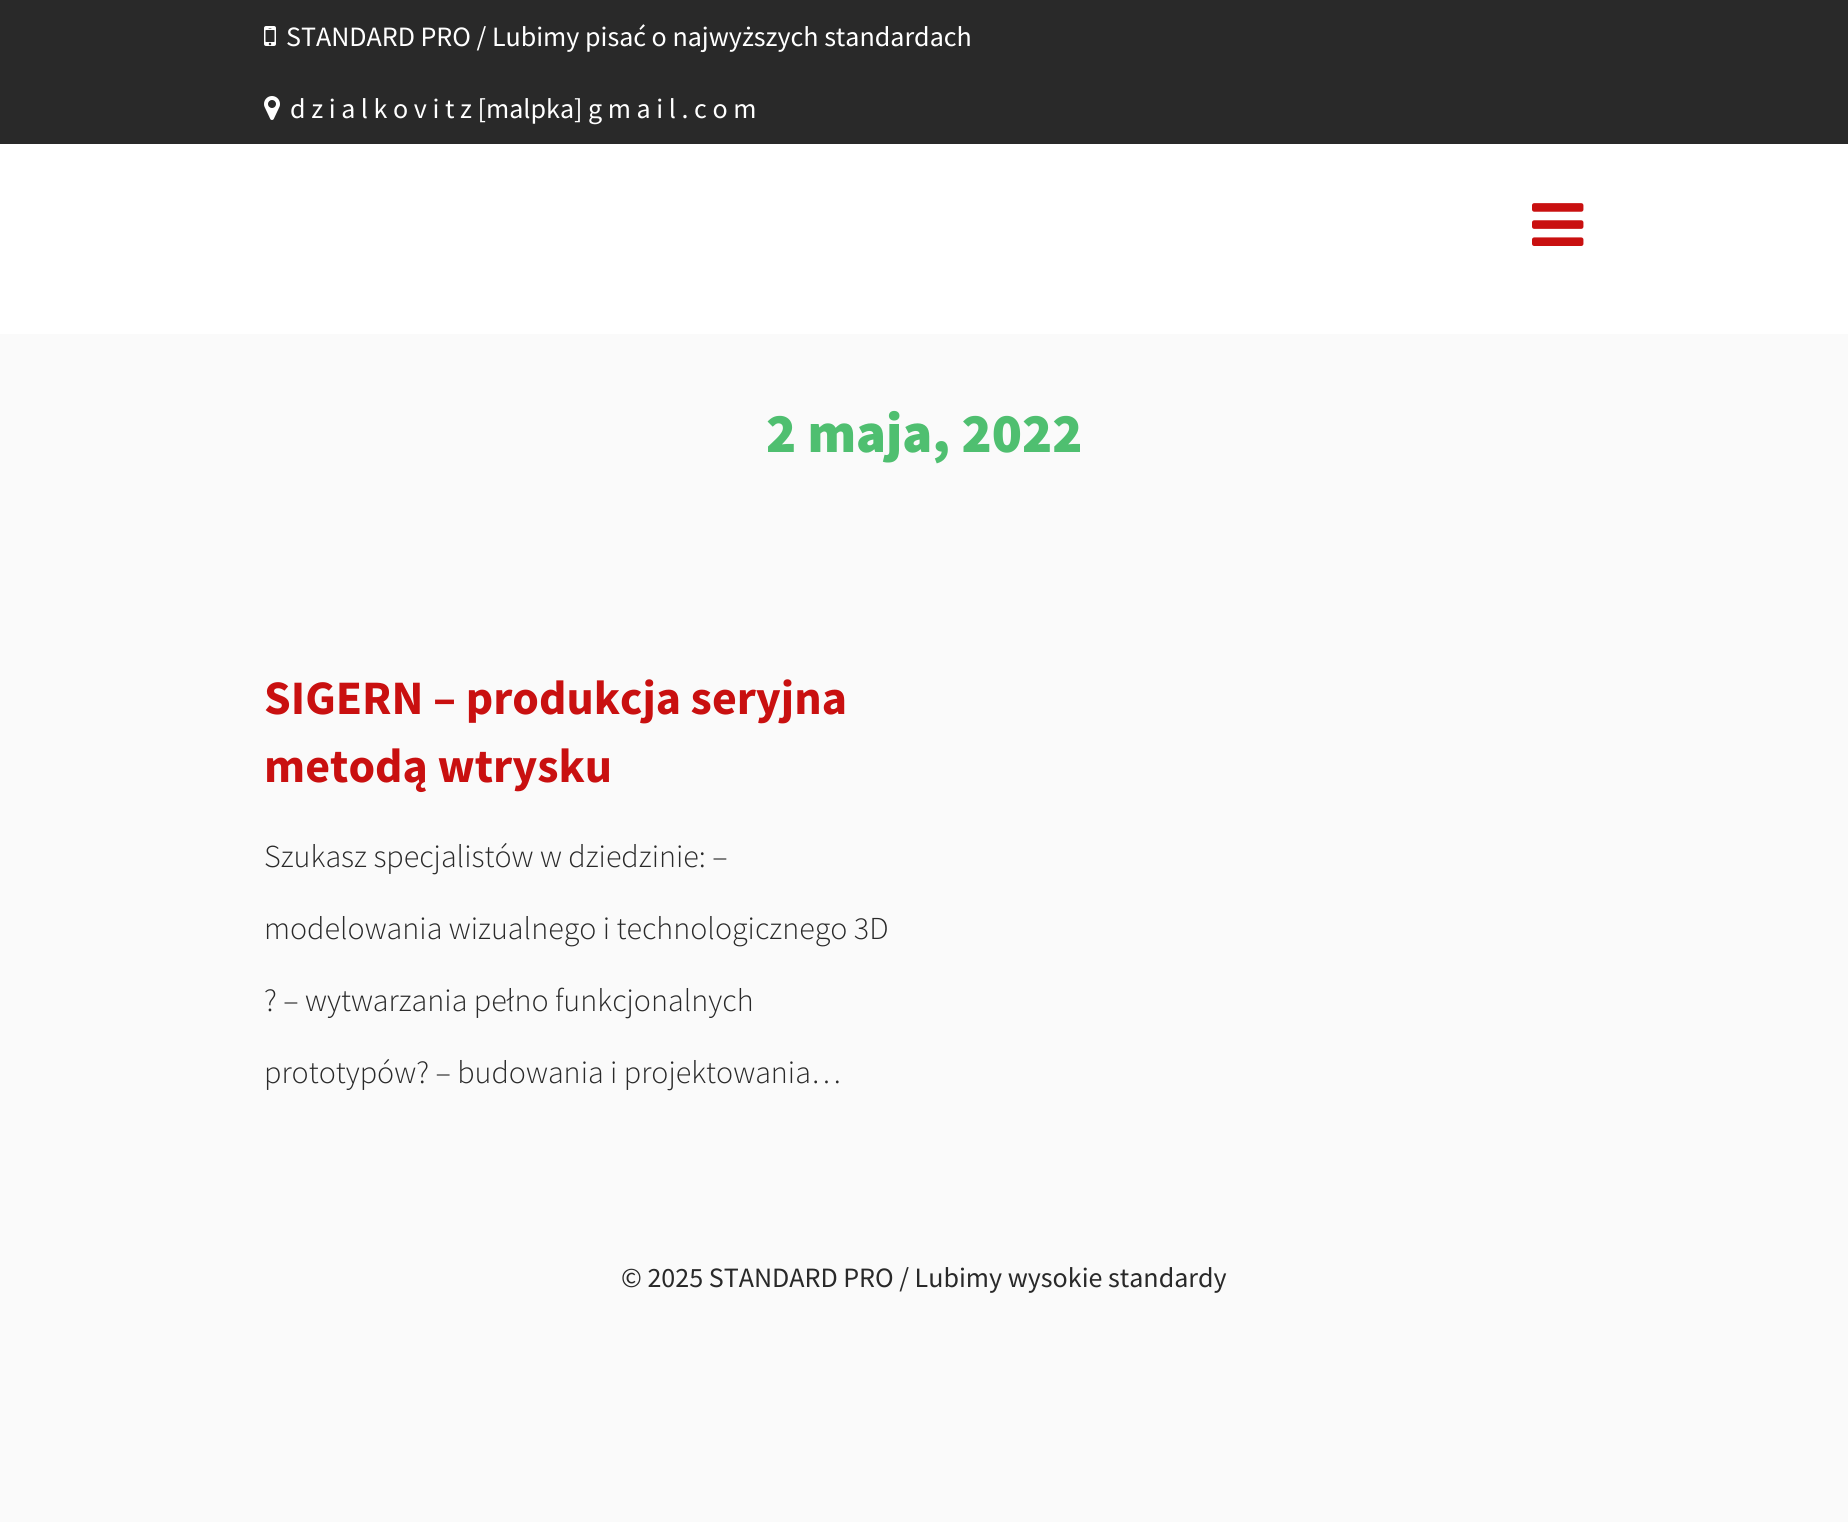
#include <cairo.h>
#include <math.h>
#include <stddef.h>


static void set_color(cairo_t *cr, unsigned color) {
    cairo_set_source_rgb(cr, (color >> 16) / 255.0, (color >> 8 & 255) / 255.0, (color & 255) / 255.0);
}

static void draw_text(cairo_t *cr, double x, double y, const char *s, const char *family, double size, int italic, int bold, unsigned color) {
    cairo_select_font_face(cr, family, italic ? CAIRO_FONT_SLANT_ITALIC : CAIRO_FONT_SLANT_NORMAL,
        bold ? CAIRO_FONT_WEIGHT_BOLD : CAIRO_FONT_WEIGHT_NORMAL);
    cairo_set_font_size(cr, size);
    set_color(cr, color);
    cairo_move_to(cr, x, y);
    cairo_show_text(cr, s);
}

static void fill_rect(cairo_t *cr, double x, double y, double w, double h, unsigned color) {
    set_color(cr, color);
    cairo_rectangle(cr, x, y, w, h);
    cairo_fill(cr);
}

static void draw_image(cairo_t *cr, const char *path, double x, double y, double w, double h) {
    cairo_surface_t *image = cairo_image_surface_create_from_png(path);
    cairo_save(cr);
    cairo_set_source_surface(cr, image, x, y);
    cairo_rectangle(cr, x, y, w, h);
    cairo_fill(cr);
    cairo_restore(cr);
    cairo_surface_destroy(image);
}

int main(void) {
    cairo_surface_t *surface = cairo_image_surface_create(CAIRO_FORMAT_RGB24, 1848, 1522);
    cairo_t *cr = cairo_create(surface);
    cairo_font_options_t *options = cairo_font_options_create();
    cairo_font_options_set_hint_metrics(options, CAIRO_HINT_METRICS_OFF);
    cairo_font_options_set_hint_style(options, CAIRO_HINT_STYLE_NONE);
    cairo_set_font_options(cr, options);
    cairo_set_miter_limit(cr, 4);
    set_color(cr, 0xFAFAFA);
    cairo_paint(cr);
    fill_rect(cr, 0, 144, 1848, 190, 0xFFFFFF);
    fill_rect(cr, 0, 0, 1848, 144, 0x292929);
    draw_image(cr, "assets/img1.png", 264, 26, 12, 20);
    draw_text(cr, 286, 46, "STANDARD PRO / Lubimy pisać o najwyższych standardach", "Source Sans Pro", 28, 0, 0, 0xFFFFFF);
    draw_image(cr, "assets/img2.png", 264, 96, 16, 24);
    draw_text(cr, 290, 118, "d z i a l k o v i t z [malpka] g m a i l . c o m", "Source Sans Pro", 28, 0, 0, 0xFFFFFF);
    draw_image(cr, "assets/img3.png", 1532, 203, 52, 43);
    draw_text(cr, 766, 452, "2 maja, 2022", "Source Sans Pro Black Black", 56, 0, 0, 0x4FBF70);
    draw_text(cr, 264, 714, "SIGERN – produkcja seryjna", "Source Sans Pro", 48, 0, 1, 0xC91010);
    draw_text(cr, 264, 782, "metodą wtrysku", "Source Sans Pro", 48, 0, 1, 0xC91010);
    draw_text(cr, 264, 867, "Szukasz specjalistów w dziedzinie: –", "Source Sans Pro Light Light", 32, 0, 0, 0x292929);
    draw_text(cr, 264, 939, "modelowania wizualnego i technologicznego 3D", "Source Sans Pro Light Light", 32, 0, 0, 0x292929);
    draw_text(cr, 264, 1011, "? – wytwarzania pełno funkcjonalnych", "Source Sans Pro Light Light", 32, 0, 0, 0x292929);
    draw_text(cr, 264, 1083, "prototypów? – budowania i projektowania…", "Source Sans Pro Light Light", 32, 0, 0, 0x292929);
    draw_text(cr, 621, 1287, "© 2025 STANDARD PRO / Lubimy wysokie standardy", "Source Sans Pro", 28, 0, 0, 0x292929);
    cairo_surface_write_to_png(surface, "output.png");
    cairo_font_options_destroy(options);
    cairo_destroy(cr);
    cairo_surface_destroy(surface);
    return 0;
}
